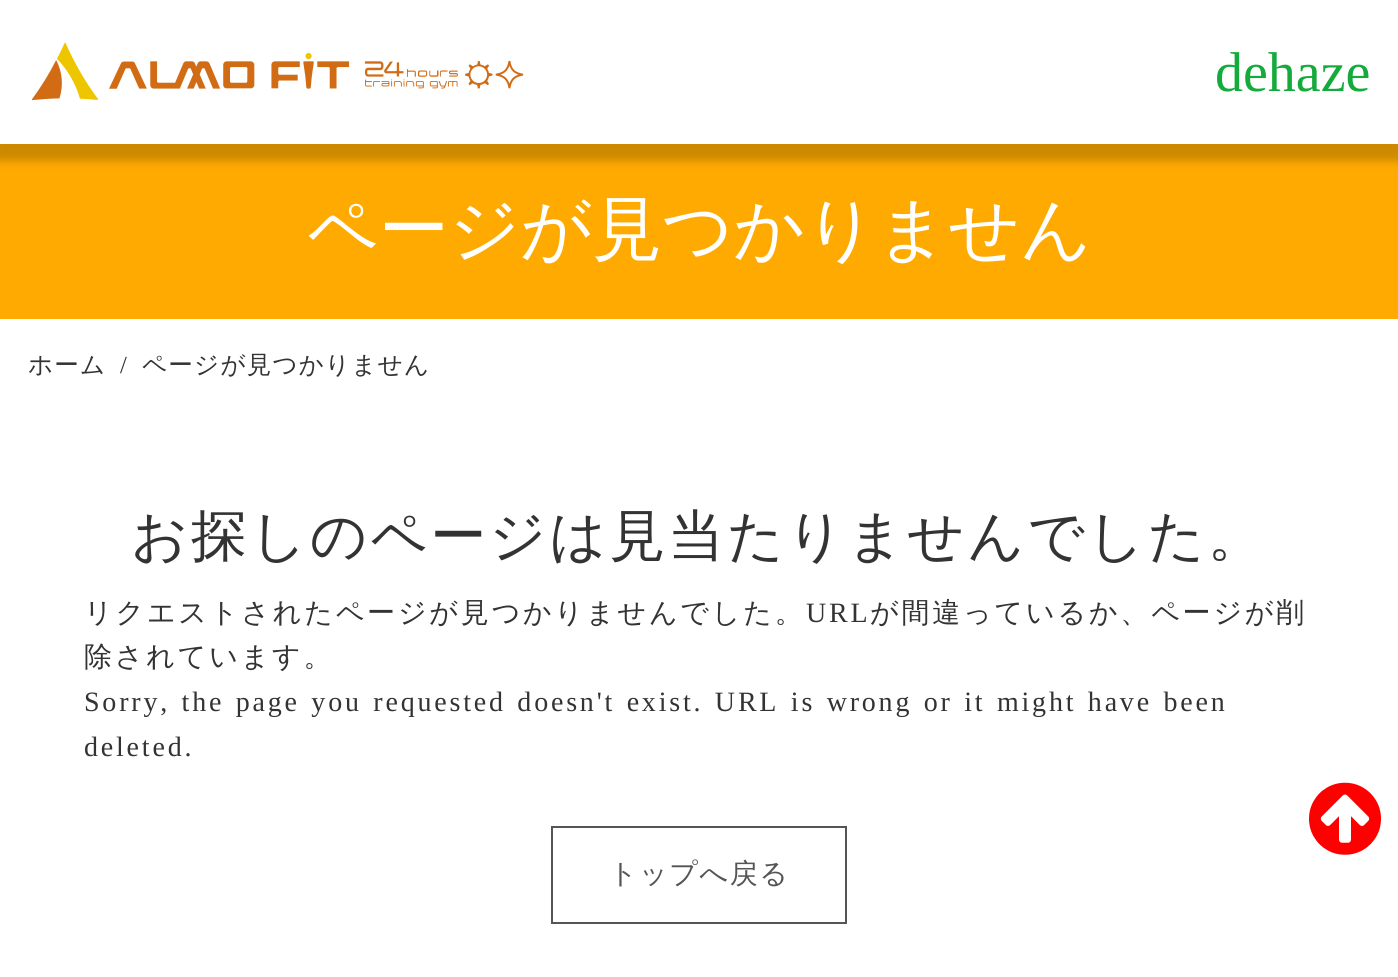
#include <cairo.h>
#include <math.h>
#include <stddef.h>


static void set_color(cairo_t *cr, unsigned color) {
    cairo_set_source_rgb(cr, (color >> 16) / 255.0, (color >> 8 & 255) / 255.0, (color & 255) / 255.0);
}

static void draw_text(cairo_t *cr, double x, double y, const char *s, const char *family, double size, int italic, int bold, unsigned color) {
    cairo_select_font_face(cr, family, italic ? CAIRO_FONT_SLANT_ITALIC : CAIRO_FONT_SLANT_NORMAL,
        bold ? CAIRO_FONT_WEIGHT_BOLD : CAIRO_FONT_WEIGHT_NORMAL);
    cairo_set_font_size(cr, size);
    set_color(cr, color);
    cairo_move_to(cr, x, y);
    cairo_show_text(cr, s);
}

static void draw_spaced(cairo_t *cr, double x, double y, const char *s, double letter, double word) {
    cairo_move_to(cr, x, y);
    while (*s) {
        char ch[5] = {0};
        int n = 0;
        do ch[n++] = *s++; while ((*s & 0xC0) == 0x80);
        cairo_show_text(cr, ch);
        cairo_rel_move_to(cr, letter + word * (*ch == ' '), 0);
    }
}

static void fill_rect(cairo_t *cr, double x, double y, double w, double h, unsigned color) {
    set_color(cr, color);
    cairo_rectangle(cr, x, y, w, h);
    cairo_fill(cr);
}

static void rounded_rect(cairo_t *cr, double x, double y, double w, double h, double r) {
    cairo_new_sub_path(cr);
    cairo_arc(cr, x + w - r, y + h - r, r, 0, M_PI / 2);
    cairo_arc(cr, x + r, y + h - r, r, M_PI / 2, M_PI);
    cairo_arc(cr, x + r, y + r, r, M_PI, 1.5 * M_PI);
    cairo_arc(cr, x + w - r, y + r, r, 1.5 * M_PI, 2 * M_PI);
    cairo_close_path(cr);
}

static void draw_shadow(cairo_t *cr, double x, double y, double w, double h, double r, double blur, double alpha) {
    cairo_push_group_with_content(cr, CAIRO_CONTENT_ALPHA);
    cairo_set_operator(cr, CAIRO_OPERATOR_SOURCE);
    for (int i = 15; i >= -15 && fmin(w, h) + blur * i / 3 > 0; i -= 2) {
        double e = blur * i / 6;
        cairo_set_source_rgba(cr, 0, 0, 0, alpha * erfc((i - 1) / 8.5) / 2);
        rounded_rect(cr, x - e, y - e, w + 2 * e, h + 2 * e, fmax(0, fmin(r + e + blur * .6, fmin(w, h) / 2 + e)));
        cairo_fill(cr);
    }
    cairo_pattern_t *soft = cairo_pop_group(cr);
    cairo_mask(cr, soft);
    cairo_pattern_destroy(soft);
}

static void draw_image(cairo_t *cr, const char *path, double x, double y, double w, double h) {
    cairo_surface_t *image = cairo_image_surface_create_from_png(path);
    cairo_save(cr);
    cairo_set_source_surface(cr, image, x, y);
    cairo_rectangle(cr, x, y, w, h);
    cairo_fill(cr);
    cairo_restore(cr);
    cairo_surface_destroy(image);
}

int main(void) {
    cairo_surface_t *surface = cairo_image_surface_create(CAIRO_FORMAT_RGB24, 1398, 977);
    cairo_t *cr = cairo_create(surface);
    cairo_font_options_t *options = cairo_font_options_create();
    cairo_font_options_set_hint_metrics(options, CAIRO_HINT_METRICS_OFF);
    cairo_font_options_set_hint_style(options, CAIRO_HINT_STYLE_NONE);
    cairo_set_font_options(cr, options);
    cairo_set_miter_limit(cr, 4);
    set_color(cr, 0xFFFFFF);
    cairo_paint(cr);
    fill_rect(cr, 0, 144, 1398, 175, 0xFFAA00);
    set_color(cr, 0x000000);
    draw_shadow(cr, -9, 0, 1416, 161, 0, 4.5, 0.2);
    fill_rect(cr, 0, 0, 1398, 144, 0xFFFFFF);
    draw_image(cr, "assets/img1.png", 31, 42, 493, 59);
    draw_text(cr, 1215, 91, "dehaze", "Liberation Serif", 56, 0, 0, 0x14AA3C);
    draw_text(cr, 307, 253, "ページが見つかりません", "WenQuanYi Zen Hei Medium", 70, 0, 0, 0xFFFFFF);
    cairo_set_font_size(cr, 24.5);
    set_color(cr, 0x333333);
    draw_spaced(cr, 28, 373, "ホーム", 1.25, 0);
    cairo_select_font_face(cr, "Liberation Serif", CAIRO_FONT_SLANT_NORMAL, CAIRO_FONT_WEIGHT_NORMAL);
    draw_spaced(cr, 120, 373, "/", 1.25, 0);
    cairo_select_font_face(cr, "WenQuanYi Zen Hei Medium", CAIRO_FONT_SLANT_NORMAL, CAIRO_FONT_WEIGHT_NORMAL);
    draw_spaced(cr, 142, 373, "ページが見つかりません", 1.25, 0);
    cairo_set_font_size(cr, 56);
    draw_spaced(cr, 131, 555, "お探しのページは見当たりませんでした。", 2.8, 0);
    cairo_set_font_size(cr, 28);
    draw_spaced(cr, 84, 622, "リクエストされたページが見つかりませんでした。", 2.8, 0);
    cairo_select_font_face(cr, "Liberation Serif", CAIRO_FONT_SLANT_NORMAL, CAIRO_FONT_WEIGHT_NORMAL);
    draw_spaced(cr, 806, 622, "URL", 2.8, 0);
    cairo_select_font_face(cr, "WenQuanYi Zen Hei Medium", CAIRO_FONT_SLANT_NORMAL, CAIRO_FONT_WEIGHT_NORMAL);
    draw_spaced(cr, 870, 622, "が間違っているか、ページが削", 2.8, 0);
    draw_spaced(cr, 84, 666, "除されています。", 2.8, 0);
    cairo_select_font_face(cr, "Liberation Serif", CAIRO_FONT_SLANT_NORMAL, CAIRO_FONT_WEIGHT_NORMAL);
    draw_spaced(cr, 84, 711, "Sorry, the page you requested doesn't exist. URL is wrong or it might have been", 2.8, 1.75);
    draw_spaced(cr, 84, 756, "deleted.", 2.8, 0);
    cairo_rectangle(cr, 552, 827, 294, 96);
    set_color(cr, 0x555555);
    cairo_stroke(cr);
    cairo_select_font_face(cr, "WenQuanYi Zen Hei Medium", CAIRO_FONT_SLANT_NORMAL, CAIRO_FONT_WEIGHT_NORMAL);
    draw_spaced(cr, 609, 883, "トップへ戻る", 1.5, 0);
    draw_image(cr, "assets/img2.png", 1309, 782, 72, 73);
    cairo_surface_write_to_png(surface, "output.png");
    cairo_font_options_destroy(options);
    cairo_destroy(cr);
    cairo_surface_destroy(surface);
    return 0;
}
